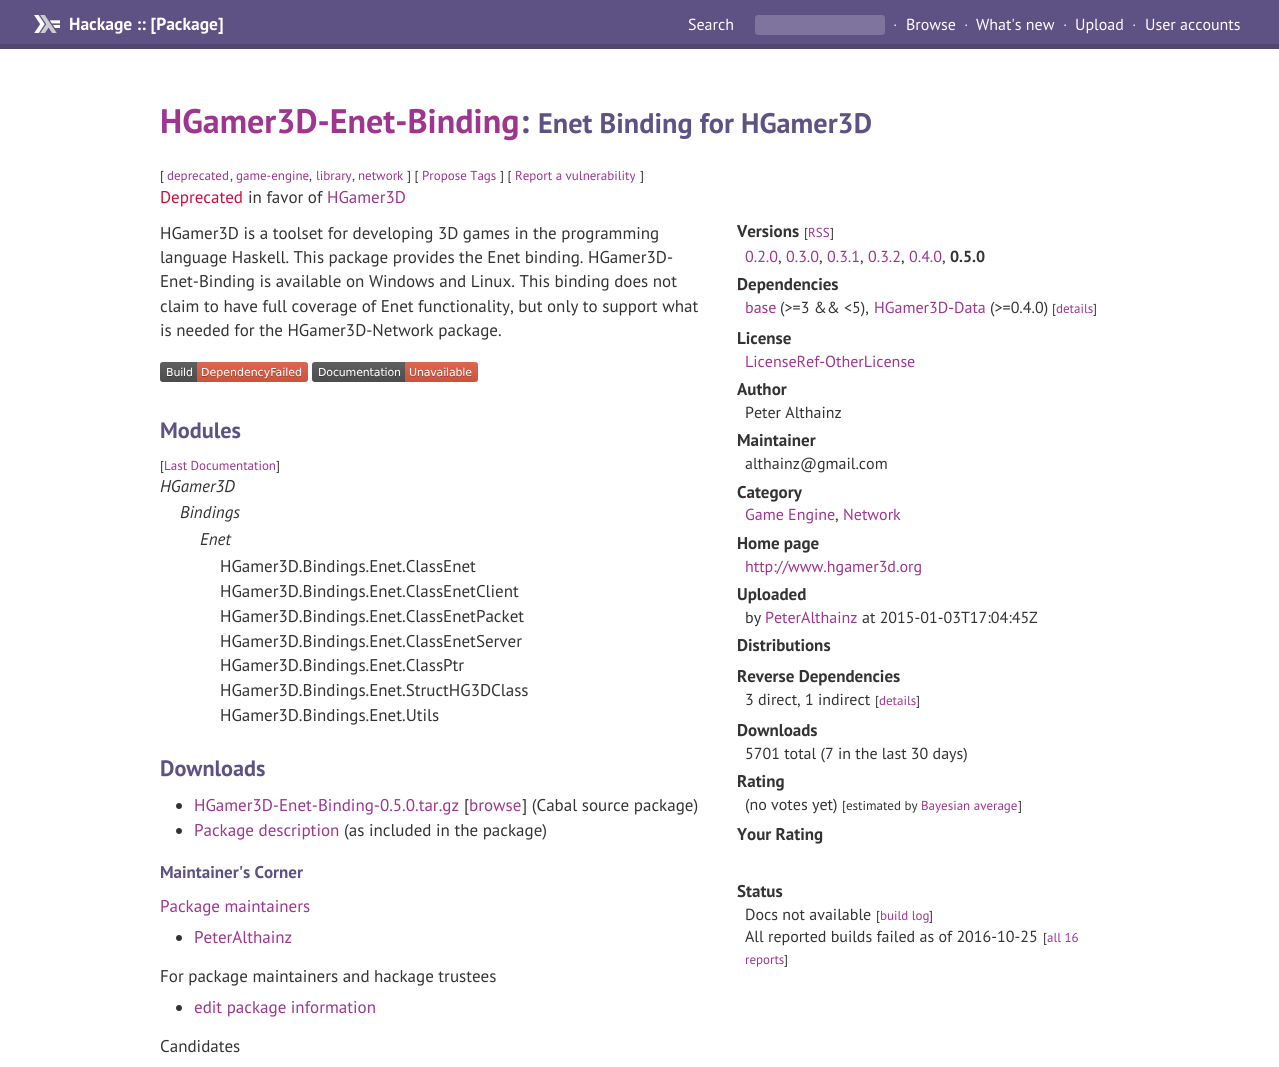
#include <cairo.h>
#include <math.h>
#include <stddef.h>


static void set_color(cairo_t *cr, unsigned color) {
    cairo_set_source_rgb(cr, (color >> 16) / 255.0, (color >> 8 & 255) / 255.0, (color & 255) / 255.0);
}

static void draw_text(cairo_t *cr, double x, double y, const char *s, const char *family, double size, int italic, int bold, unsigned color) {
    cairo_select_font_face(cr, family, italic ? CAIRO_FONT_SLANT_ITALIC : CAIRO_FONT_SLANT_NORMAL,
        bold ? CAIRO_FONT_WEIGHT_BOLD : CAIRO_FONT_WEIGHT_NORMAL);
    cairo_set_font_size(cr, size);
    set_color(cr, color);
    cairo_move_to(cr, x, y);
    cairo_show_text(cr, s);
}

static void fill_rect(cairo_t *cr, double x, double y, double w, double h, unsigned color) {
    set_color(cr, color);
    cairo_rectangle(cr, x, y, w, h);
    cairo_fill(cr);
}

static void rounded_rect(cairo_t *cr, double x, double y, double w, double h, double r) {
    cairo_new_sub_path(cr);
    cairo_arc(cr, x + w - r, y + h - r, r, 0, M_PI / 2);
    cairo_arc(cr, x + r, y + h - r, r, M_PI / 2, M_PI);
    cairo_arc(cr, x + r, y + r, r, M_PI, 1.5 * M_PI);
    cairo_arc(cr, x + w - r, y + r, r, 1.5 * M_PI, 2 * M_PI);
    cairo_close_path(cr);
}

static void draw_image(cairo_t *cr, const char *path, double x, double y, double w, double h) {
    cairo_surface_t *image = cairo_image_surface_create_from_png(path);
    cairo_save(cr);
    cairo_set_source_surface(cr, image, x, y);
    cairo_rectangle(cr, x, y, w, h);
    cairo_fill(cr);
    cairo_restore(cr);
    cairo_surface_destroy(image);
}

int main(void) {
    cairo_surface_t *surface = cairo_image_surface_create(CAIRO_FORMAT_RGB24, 1279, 1067);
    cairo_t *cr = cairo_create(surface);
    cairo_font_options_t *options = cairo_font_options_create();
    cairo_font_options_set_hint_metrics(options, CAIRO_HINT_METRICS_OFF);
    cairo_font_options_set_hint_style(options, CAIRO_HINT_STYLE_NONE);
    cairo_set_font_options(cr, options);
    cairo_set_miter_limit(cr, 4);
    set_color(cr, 0xFFFFFF);
    cairo_paint(cr);
    fill_rect(cr, 0, 0, 1279, 44, 0x5E5184);
    fill_rect(cr, 0, 44, 1279, 5, 0x524673);
    draw_image(cr, "assets/img1.png", 34, 15, 26, 18);
    draw_text(cr, 69, 30, "Hackage :: [Package]", "PT Sans", 17.5, 0, 1, 0xFFFFFF);
    draw_text(cr, 688, 30, "Search", "PT Sans", 16, 0, 0, 0xFFFFFF);
    set_color(cr, 0x7E749D);
    rounded_rect(cr, 755, 15, 130, 20, 3);
    cairo_fill(cr);
    draw_text(cr, 893, 30, "·", "PT Sans", 16, 0, 0, 0xDDDDDD);
    draw_text(cr, 906, 30, "Browse", "PT Sans", 16, 0, 0, 0xFFFFFF);
    draw_text(cr, 964, 30, "·", "PT Sans", 16, 0, 0, 0xDDDDDD);
    draw_text(cr, 976, 30, "What's new", "PT Sans", 16, 0, 0, 0xFFFFFF);
    draw_text(cr, 1063, 30, "·", "PT Sans", 16, 0, 0, 0xDDDDDD);
    draw_text(cr, 1075, 30, "Upload", "PT Sans", 16, 0, 0, 0xFFFFFF);
    draw_text(cr, 1132, 30, "·", "PT Sans", 16, 0, 0, 0xDDDDDD);
    draw_text(cr, 1145, 30, "User accounts", "PT Sans", 16, 0, 0, 0xFFFFFF);
    draw_text(cr, 160, 133, "HGamer3D-Enet-Binding", "PT Sans", 34, 0, 1, 0x9E358F);
    draw_text(cr, 520, 133, ":", "PT Sans", 34, 0, 1, 0x5E5184);
    draw_text(cr, 538, 133, "Enet Binding for HGamer3D", "PT Sans", 28.25, 0, 1, 0x5E5184);
    draw_text(cr, 160, 180, "[", "PT Sans", 13, 0, 0, 0x333333);
    draw_text(cr, 167, 180, "deprecated", "PT Sans", 13, 0, 0, 0x9E358F);
    draw_text(cr, 230, 180, ",", "PT Sans", 13, 0, 0, 0x333333);
    draw_text(cr, 236, 180, "game-engine", "PT Sans", 13, 0, 0, 0x9E358F);
    draw_text(cr, 309, 180, ",", "PT Sans", 13, 0, 0, 0x333333);
    draw_text(cr, 316, 180, "library", "PT Sans", 13, 0, 0, 0x9E358F);
    draw_text(cr, 352, 180, ",", "PT Sans", 13, 0, 0, 0x333333);
    draw_text(cr, 358, 180, "network", "PT Sans", 13, 0, 0, 0x9E358F);
    draw_text(cr, 407, 180, "] [", "PT Sans", 13, 0, 0, 0x333333);
    draw_text(cr, 422, 180, "Propose Tags", "PT Sans", 13, 0, 0, 0x9E358F);
    draw_text(cr, 500, 180, "] [", "PT Sans", 13, 0, 0, 0x333333);
    draw_text(cr, 515, 180, "Report a vulnerability", "PT Sans", 13, 0, 0, 0x9E358F);
    draw_text(cr, 640, 180, "]", "PT Sans", 13, 0, 0, 0x333333);
    draw_text(cr, 160, 203, "Deprecated", "PT Sans", 17, 0, 0, 0xD00B3C);
    draw_text(cr, 248, 203, "in favor of", "PT Sans", 17, 0, 0, 0x333333);
    draw_text(cr, 327, 203, "HGamer3D", "PT Sans", 17, 0, 0, 0x9E358F);
    draw_text(cr, 160, 239, "HGamer3D is a toolset for developing 3D games in the programming", "PT Sans", 17, 0, 0, 0x333333);
    draw_text(cr, 160, 263, "language Haskell. This package provides the Enet binding. HGamer3D-", "PT Sans", 17, 0, 0, 0x333333);
    draw_text(cr, 160, 287, "Enet-Binding is available on Windows and Linux. This binding does not", "PT Sans", 17, 0, 0, 0x333333);
    draw_text(cr, 160, 312, "claim to have full coverage of Enet functionality, but only to support what", "PT Sans", 17, 0, 0, 0x333333);
    draw_text(cr, 160, 336, "is needed for the HGamer3D-Network package.", "PT Sans", 17, 0, 0, 0x333333);
    draw_image(cr, "assets/img2.png", 160, 362, 148, 20);
    draw_image(cr, "assets/img3.png", 312, 362, 166, 20);
    draw_text(cr, 160, 438, "Modules", "PT Sans", 22.25, 0, 1, 0x5E5184);
    draw_text(cr, 160, 470, "[", "PT Sans", 13, 0, 0, 0x333333);
    draw_text(cr, 164, 470, "Last Documentation", "PT Sans", 13, 0, 0, 0x9E358F);
    draw_text(cr, 276, 470, "]", "PT Sans", 13, 0, 0, 0x333333);
    draw_text(cr, 160, 492, "HGamer3D", "PT Sans", 17, 1, 0, 0x333333);
    draw_text(cr, 180, 518, "Bindings", "PT Sans", 17, 1, 0, 0x333333);
    draw_text(cr, 200, 545, "Enet", "PT Sans", 17, 1, 0, 0x333333);
    draw_text(cr, 220, 572, "HGamer3D.Bindings.Enet.ClassEnet", "PT Sans", 17, 0, 0, 0x333333);
    draw_text(cr, 220, 597, "HGamer3D.Bindings.Enet.ClassEnetClient", "PT Sans", 17, 0, 0, 0x333333);
    draw_text(cr, 220, 622, "HGamer3D.Bindings.Enet.ClassEnetPacket", "PT Sans", 17, 0, 0, 0x333333);
    draw_text(cr, 220, 647, "HGamer3D.Bindings.Enet.ClassEnetServer", "PT Sans", 17, 0, 0, 0x333333);
    draw_text(cr, 220, 671, "HGamer3D.Bindings.Enet.ClassPtr", "PT Sans", 17, 0, 0, 0x333333);
    draw_text(cr, 220, 696, "HGamer3D.Bindings.Enet.StructHG3DClass", "PT Sans", 17, 0, 0, 0x333333);
    draw_text(cr, 220, 721, "HGamer3D.Bindings.Enet.Utils", "PT Sans", 17, 0, 0, 0x333333);
    draw_text(cr, 160, 776, "Downloads", "PT Sans", 22.25, 0, 1, 0x5E5184);
    set_color(cr, 0x333333);
    cairo_new_path(cr);
    cairo_arc(cr, 179, 806, 3, 0, 2 * M_PI);
    cairo_fill(cr);
    draw_text(cr, 194, 811, "HGamer3D-Enet-Binding-0.5.0.tar.gz", "PT Sans", 17, 0, 0, 0x9E358F);
    draw_text(cr, 464, 811, "[", "PT Sans", 17, 0, 0, 0x333333);
    draw_text(cr, 469, 811, "browse", "PT Sans", 17, 0, 0, 0x9E358F);
    draw_text(cr, 522, 811, "] (Cabal source package)", "PT Sans", 17, 0, 0, 0x333333);
    cairo_new_path(cr);
    cairo_arc(cr, 179, 831, 3, 0, 2 * M_PI);
    cairo_fill(cr);
    draw_text(cr, 194, 836, "Package description", "PT Sans", 17, 0, 0, 0x9E358F);
    draw_text(cr, 344, 836, "(as included in the package)", "PT Sans", 17, 0, 0, 0x333333);
    draw_text(cr, 160, 878, "Maintainer's Corner", "PT Sans", 17, 0, 1, 0x5E5184);
    draw_text(cr, 160, 912, "Package maintainers", "PT Sans", 17, 0, 0, 0x9E358F);
    set_color(cr, 0x333333);
    cairo_new_path(cr);
    cairo_arc(cr, 179, 938, 3, 0, 2 * M_PI);
    cairo_fill(cr);
    draw_text(cr, 194, 943, "PeterAlthainz", "PT Sans", 17, 0, 0, 0x9E358F);
    draw_text(cr, 160, 982, "For package maintainers and hackage trustees", "PT Sans", 17, 0, 0, 0x333333);
    cairo_new_path(cr);
    cairo_arc(cr, 179, 1008, 3, 0, 2 * M_PI);
    cairo_fill(cr);
    draw_text(cr, 194, 1013, "edit package information", "PT Sans", 17, 0, 0, 0x9E358F);
    draw_text(cr, 160, 1052, "Candidates", "PT Sans", 17, 0, 0, 0x333333);
    draw_text(cr, 737, 237, "Versions", "PT Sans", 17, 0, 1, 0x333333);
    draw_text(cr, 804, 237, "[", "PT Sans", 13, 0, 0, 0x333333);
    draw_text(cr, 808, 237, "RSS", "PT Sans", 13, 0, 0, 0x9E358F);
    draw_text(cr, 830, 237, "]", "PT Sans", 13, 0, 0, 0x333333);
    draw_text(cr, 745, 262, "0.2.0", "PT Sans", 16, 0, 0, 0x9E358F);
    draw_text(cr, 778, 262, ",", "PT Sans", 16, 0, 0, 0x333333);
    draw_text(cr, 786, 262, "0.3.0", "PT Sans", 16, 0, 0, 0x9E358F);
    draw_text(cr, 819, 262, ",", "PT Sans", 16, 0, 0, 0x333333);
    draw_text(cr, 827, 262, "0.3.1", "PT Sans", 16, 0, 0, 0x9E358F);
    draw_text(cr, 860, 262, ",", "PT Sans", 16, 0, 0, 0x333333);
    draw_text(cr, 868, 262, "0.3.2", "PT Sans", 16, 0, 0, 0x9E358F);
    draw_text(cr, 901, 262, ",", "PT Sans", 16, 0, 0, 0x333333);
    draw_text(cr, 909, 262, "0.4.0", "PT Sans", 16, 0, 0, 0x9E358F);
    draw_text(cr, 942, 262, ",", "PT Sans", 16, 0, 0, 0x333333);
    draw_text(cr, 950, 262, "0.5.0", "PT Sans", 16, 0, 1, 0x333333);
    draw_text(cr, 737, 290, "Dependencies", "PT Sans", 17, 0, 1, 0x333333);
    draw_text(cr, 745, 313, "base", "PT Sans", 16, 0, 0, 0x9E358F);
    draw_text(cr, 780, 313, "(>=3 && <5),", "PT Sans", 16, 0, 0, 0x333333);
    draw_text(cr, 874, 313, "HGamer3D-Data", "PT Sans", 16, 0, 0, 0x9E358F);
    draw_text(cr, 990, 313, "(>=0.4.0)", "PT Sans", 16, 0, 0, 0x333333);
    draw_text(cr, 1052, 313, "[", "PT Sans", 13, 0, 0, 0x333333);
    draw_text(cr, 1056, 313, "details", "PT Sans", 13, 0, 0, 0x9E358F);
    draw_text(cr, 1093, 313, "]", "PT Sans", 13, 0, 0, 0x333333);
    draw_text(cr, 737, 344, "License", "PT Sans", 17, 0, 1, 0x333333);
    draw_text(cr, 745, 367, "LicenseRef-OtherLicense", "PT Sans", 16, 0, 0, 0x9E358F);
    draw_text(cr, 737, 395, "Author", "PT Sans", 17, 0, 1, 0x333333);
    draw_text(cr, 745, 418, "Peter Althainz", "PT Sans", 16, 0, 0, 0x333333);
    draw_text(cr, 737, 446, "Maintainer", "PT Sans", 17, 0, 1, 0x333333);
    draw_text(cr, 745, 469, "althainz@gmail.com", "PT Sans", 16, 0, 0, 0x333333);
    draw_text(cr, 737, 498, "Category", "PT Sans", 17, 0, 1, 0x333333);
    draw_text(cr, 745, 520, "Game Engine", "PT Sans", 16, 0, 0, 0x9E358F);
    draw_text(cr, 835, 520, ",", "PT Sans", 16, 0, 0, 0x333333);
    draw_text(cr, 843, 520, "Network", "PT Sans", 16, 0, 0, 0x9E358F);
    draw_text(cr, 737, 549, "Home page", "PT Sans", 17, 0, 1, 0x333333);
    draw_text(cr, 745, 572, "http://www.hgamer3d.org", "PT Sans", 16, 0, 0, 0x9E358F);
    draw_text(cr, 737, 600, "Uploaded", "PT Sans", 17, 0, 1, 0x333333);
    draw_text(cr, 745, 623, "by", "PT Sans", 16, 0, 0, 0x333333);
    draw_text(cr, 765, 623, "PeterAlthainz", "PT Sans", 16, 0, 0, 0x9E358F);
    draw_text(cr, 862, 623, "at 2015-01-03T17:04:45Z", "PT Sans", 16, 0, 0, 0x333333);
    draw_text(cr, 737, 651, "Distributions", "PT Sans", 17, 0, 1, 0x333333);
    draw_text(cr, 737, 682, "Reverse Dependencies", "PT Sans", 17, 0, 1, 0x333333);
    draw_text(cr, 745, 705, "3 direct, 1 indirect", "PT Sans", 16, 0, 0, 0x333333);
    draw_text(cr, 875, 705, "[", "PT Sans", 13, 0, 0, 0x333333);
    draw_text(cr, 879, 705, "details", "PT Sans", 13, 0, 0, 0x9E358F);
    draw_text(cr, 916, 705, "]", "PT Sans", 13, 0, 0, 0x333333);
    draw_text(cr, 737, 736, "Downloads", "PT Sans", 17, 0, 1, 0x333333);
    draw_text(cr, 745, 759, "5701 total (7 in the last 30 days)", "PT Sans", 16, 0, 0, 0x333333);
    draw_text(cr, 737, 787, "Rating", "PT Sans", 17, 0, 1, 0x333333);
    draw_text(cr, 745, 810, "(no votes yet)", "PT Sans", 16, 0, 0, 0x333333);
    draw_text(cr, 842, 810, "[estimated by", "PT Sans", 13, 0, 0, 0x333333);
    draw_text(cr, 921, 810, "Bayesian average", "PT Sans", 13, 0, 0, 0x9E358F);
    draw_text(cr, 1018, 810, "]", "PT Sans", 13, 0, 0, 0x333333);
    draw_text(cr, 737, 840, "Your Rating", "PT Sans", 17, 0, 1, 0x333333);
    draw_text(cr, 737, 897, "Status", "PT Sans", 17, 0, 1, 0x333333);
    draw_text(cr, 745, 920, "Docs not available", "PT Sans", 16, 0, 0, 0x333333);
    draw_text(cr, 876, 920, "[", "PT Sans", 13, 0, 0, 0x333333);
    draw_text(cr, 880, 920, "build log", "PT Sans", 13, 0, 0, 0x9E358F);
    draw_text(cr, 929, 920, "]", "PT Sans", 13, 0, 0, 0x333333);
    draw_text(cr, 745, 942, "All reported builds failed as of 2016-10-25", "PT Sans", 16, 0, 0, 0x333333);
    draw_text(cr, 1043, 942, "[", "PT Sans", 13, 0, 0, 0x333333);
    draw_text(cr, 1047, 942, "all 16", "PT Sans", 13, 0, 0, 0x9E358F);
    draw_text(cr, 745, 964, "reports", "PT Sans", 13, 0, 0, 0x9E358F);
    draw_text(cr, 784, 964, "]", "PT Sans", 13, 0, 0, 0x333333);
    cairo_surface_write_to_png(surface, "output.png");
    cairo_font_options_destroy(options);
    cairo_destroy(cr);
    cairo_surface_destroy(surface);
    return 0;
}
